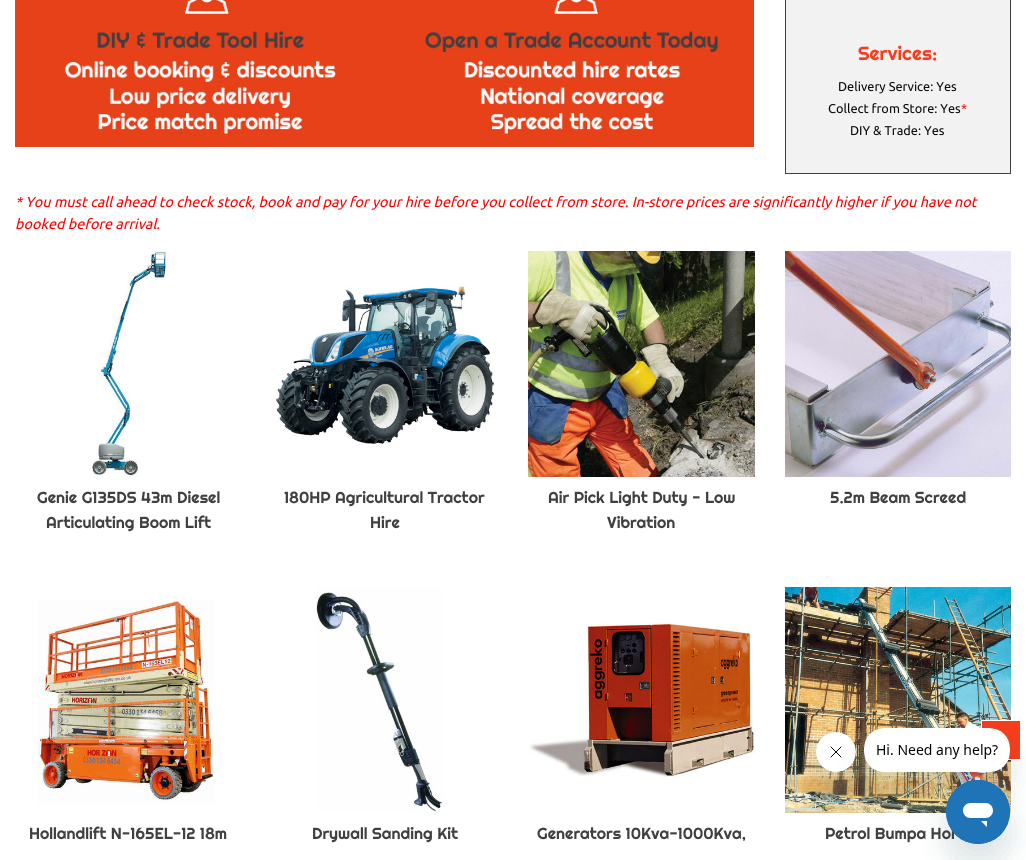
#include <cairo.h>
#include <math.h>
#include <stddef.h>


static void set_color(cairo_t *cr, unsigned color) {
    cairo_set_source_rgb(cr, (color >> 16) / 255.0, (color >> 8 & 255) / 255.0, (color & 255) / 255.0);
}

static void draw_text(cairo_t *cr, double x, double y, const char *s, const char *family, double size, int italic, int bold, unsigned color) {
    cairo_select_font_face(cr, family, italic ? CAIRO_FONT_SLANT_ITALIC : CAIRO_FONT_SLANT_NORMAL,
        bold ? CAIRO_FONT_WEIGHT_BOLD : CAIRO_FONT_WEIGHT_NORMAL);
    cairo_set_font_size(cr, size);
    set_color(cr, color);
    cairo_move_to(cr, x, y);
    cairo_show_text(cr, s);
}

static void rounded_rect(cairo_t *cr, double x, double y, double w, double h, double r) {
    cairo_new_sub_path(cr);
    cairo_arc(cr, x + w - r, y + h - r, r, 0, M_PI / 2);
    cairo_arc(cr, x + r, y + h - r, r, M_PI / 2, M_PI);
    cairo_arc(cr, x + r, y + r, r, M_PI, 1.5 * M_PI);
    cairo_arc(cr, x + w - r, y + r, r, 1.5 * M_PI, 2 * M_PI);
    cairo_close_path(cr);
}

static void draw_shadow(cairo_t *cr, double x, double y, double w, double h, double r, double blur, double alpha) {
    cairo_push_group_with_content(cr, CAIRO_CONTENT_ALPHA);
    cairo_set_operator(cr, CAIRO_OPERATOR_SOURCE);
    for (int i = 15; i >= -15 && fmin(w, h) + blur * i / 3 > 0; i -= 2) {
        double e = blur * i / 6;
        cairo_set_source_rgba(cr, 0, 0, 0, alpha * erfc((i - 1) / 8.5) / 2);
        rounded_rect(cr, x - e, y - e, w + 2 * e, h + 2 * e, fmax(0, fmin(r + e + blur * .6, fmin(w, h) / 2 + e)));
        cairo_fill(cr);
    }
    cairo_pattern_t *soft = cairo_pop_group(cr);
    cairo_mask(cr, soft);
    cairo_pattern_destroy(soft);
}

static void draw_image(cairo_t *cr, const char *path, double x, double y, double w, double h) {
    cairo_surface_t *image = cairo_image_surface_create_from_png(path);
    cairo_save(cr);
    cairo_set_source_surface(cr, image, x, y);
    cairo_rectangle(cr, x, y, w, h);
    cairo_fill(cr);
    cairo_restore(cr);
    cairo_surface_destroy(image);
}

int main(void) {
    cairo_surface_t *surface = cairo_image_surface_create(CAIRO_FORMAT_RGB24, 1026, 860);
    cairo_t *cr = cairo_create(surface);
    cairo_font_options_t *options = cairo_font_options_create();
    cairo_font_options_set_hint_metrics(options, CAIRO_HINT_METRICS_OFF);
    cairo_font_options_set_hint_style(options, CAIRO_HINT_STYLE_NONE);
    cairo_set_font_options(cr, options);
    cairo_set_miter_limit(cr, 4);
    set_color(cr, 0xFFFFFF);
    cairo_paint(cr);
    draw_image(cr, "assets/img1.png", 15, 0, 370, 147);
    draw_image(cr, "assets/img2.png", 385, 0, 369, 147);
    set_color(cr, 0xF2F2F2);
    cairo_rectangle(cr, 785.5, -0.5, 225, 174);
    cairo_fill_preserve(cr);
    set_color(cr, 0x404040);
    cairo_set_line_width(cr, 1);
    cairo_stroke(cr);
    draw_text(cr, 858, 60, "Services:", "Righteous", 19, 0, 0, 0xF63D1D);
    draw_text(cr, 838, 91, "Delivery Service: Yes", "Ubuntu", 12.75, 0, 0, 0x0A0A0A);
    draw_text(cr, 828, 113, "Collect from Store: Yes", "Ubuntu", 12.75, 0, 0, 0x0A0A0A);
    draw_text(cr, 961, 113, "*", "Ubuntu", 12.75, 0, 0, 0xFF0000);
    draw_text(cr, 850, 135, "DIY & Trade: Yes", "Ubuntu", 12.75, 0, 0, 0x0A0A0A);
    draw_text(cr, 15, 207, "* You must call ahead to check stock, book and pay for your hire before you collect from store. In-store prices are significantly higher if you have not", "Ubuntu", 14.4, 1, 0, 0xFF0000);
    draw_text(cr, 15, 229, "booked before arrival.", "Ubuntu", 14.4, 1, 0, 0xFF0000);
    draw_image(cr, "assets/img3.png", 92, 251, 77, 226);
    draw_text(cr, 37, 503, "Genie G135DS 43m Diesel", "Righteous", 16, 0, 0, 0x404042);
    draw_text(cr, 46, 528, "Articulating Boom Lift", "Righteous", 16, 0, 0, 0x404042);
    draw_image(cr, "assets/img4.png", 275, 284, 221, 161);
    draw_text(cr, 284, 503, "180HP Agricultural Tractor", "Righteous", 16, 0, 0, 0x404042);
    draw_text(cr, 370, 528, "Hire", "Righteous", 16, 0, 0, 0x404042);
    draw_image(cr, "assets/img5.png", 528, 251, 227, 226);
    draw_text(cr, 548, 503, "Air Pick Light Duty - Low", "Righteous", 16, 0, 0, 0x404042);
    draw_text(cr, 607, 528, "Vibration", "Righteous", 16, 0, 0, 0x404042);
    draw_image(cr, "assets/img6.png", 785, 251, 226, 226);
    draw_text(cr, 830, 503, "5.2m Beam Screed", "Righteous", 16, 0, 0, 0x404042);
    draw_image(cr, "assets/img7.png", 37, 600, 178, 203);
    draw_text(cr, 29, 839, "Hollandlift N-165EL-12 18m", "Righteous", 16, 0, 0, 0x404042);
    draw_image(cr, "assets/img8.png", 316, 587, 128, 226);
    draw_text(cr, 312, 839, "Drywall Sanding Kit", "Righteous", 16, 0, 0, 0x404042);
    draw_image(cr, "assets/img9.png", 529, 623, 226, 154);
    draw_text(cr, 537, 839, "Generators 10Kva-1000Kva,", "Righteous", 16, 0, 0, 0x404042);
    draw_image(cr, "assets/img10.png", 785, 587, 226, 226);
    draw_text(cr, 825, 839, "Petrol Bumpa Hoi", "Righteous", 16, 0, 0, 0x404042);
    set_color(cr, 0xF63D1D);
    cairo_rectangle(cr, 981.5, 720.5, 39, 39);
    cairo_fill_preserve(cr);
    set_color(cr, 0xFFFFFF);
    cairo_stroke(cr);
    set_color(cr, 0x17494D);
    draw_shadow(cr, 816, 752, 40, 40, 20, 15, 0.15);
    draw_image(cr, "assets/img12.png", 816, 732, 40, 40);
    draw_shadow(cr, 864, 748, 146, 44, 20, 15, 0.15);
    draw_image(cr, "assets/img11.png", 864, 728, 146, 44);
    draw_shadow(cr, 946, 800, 64, 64, 32, 15, 0.15);
    draw_image(cr, "assets/img13.png", 946, 780, 64, 64);
    cairo_surface_write_to_png(surface, "output.png");
    cairo_font_options_destroy(options);
    cairo_destroy(cr);
    cairo_surface_destroy(surface);
    return 0;
}
